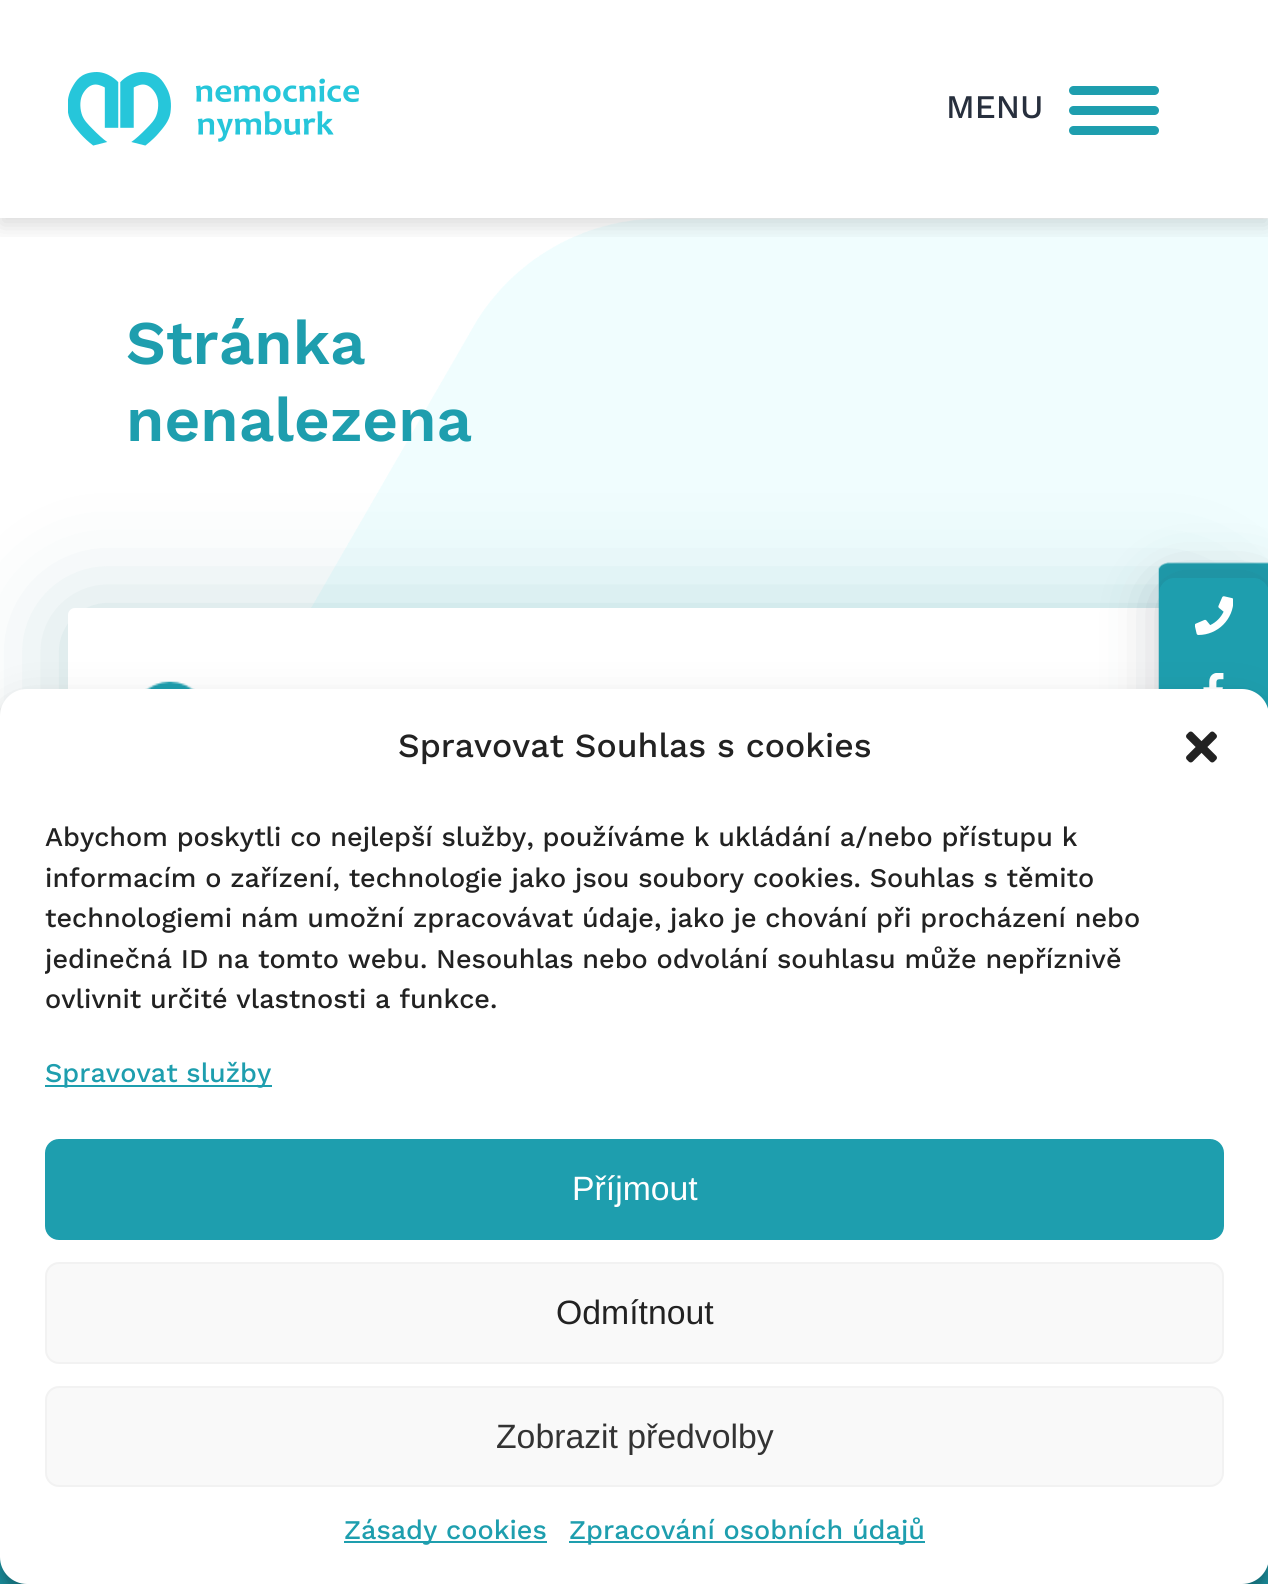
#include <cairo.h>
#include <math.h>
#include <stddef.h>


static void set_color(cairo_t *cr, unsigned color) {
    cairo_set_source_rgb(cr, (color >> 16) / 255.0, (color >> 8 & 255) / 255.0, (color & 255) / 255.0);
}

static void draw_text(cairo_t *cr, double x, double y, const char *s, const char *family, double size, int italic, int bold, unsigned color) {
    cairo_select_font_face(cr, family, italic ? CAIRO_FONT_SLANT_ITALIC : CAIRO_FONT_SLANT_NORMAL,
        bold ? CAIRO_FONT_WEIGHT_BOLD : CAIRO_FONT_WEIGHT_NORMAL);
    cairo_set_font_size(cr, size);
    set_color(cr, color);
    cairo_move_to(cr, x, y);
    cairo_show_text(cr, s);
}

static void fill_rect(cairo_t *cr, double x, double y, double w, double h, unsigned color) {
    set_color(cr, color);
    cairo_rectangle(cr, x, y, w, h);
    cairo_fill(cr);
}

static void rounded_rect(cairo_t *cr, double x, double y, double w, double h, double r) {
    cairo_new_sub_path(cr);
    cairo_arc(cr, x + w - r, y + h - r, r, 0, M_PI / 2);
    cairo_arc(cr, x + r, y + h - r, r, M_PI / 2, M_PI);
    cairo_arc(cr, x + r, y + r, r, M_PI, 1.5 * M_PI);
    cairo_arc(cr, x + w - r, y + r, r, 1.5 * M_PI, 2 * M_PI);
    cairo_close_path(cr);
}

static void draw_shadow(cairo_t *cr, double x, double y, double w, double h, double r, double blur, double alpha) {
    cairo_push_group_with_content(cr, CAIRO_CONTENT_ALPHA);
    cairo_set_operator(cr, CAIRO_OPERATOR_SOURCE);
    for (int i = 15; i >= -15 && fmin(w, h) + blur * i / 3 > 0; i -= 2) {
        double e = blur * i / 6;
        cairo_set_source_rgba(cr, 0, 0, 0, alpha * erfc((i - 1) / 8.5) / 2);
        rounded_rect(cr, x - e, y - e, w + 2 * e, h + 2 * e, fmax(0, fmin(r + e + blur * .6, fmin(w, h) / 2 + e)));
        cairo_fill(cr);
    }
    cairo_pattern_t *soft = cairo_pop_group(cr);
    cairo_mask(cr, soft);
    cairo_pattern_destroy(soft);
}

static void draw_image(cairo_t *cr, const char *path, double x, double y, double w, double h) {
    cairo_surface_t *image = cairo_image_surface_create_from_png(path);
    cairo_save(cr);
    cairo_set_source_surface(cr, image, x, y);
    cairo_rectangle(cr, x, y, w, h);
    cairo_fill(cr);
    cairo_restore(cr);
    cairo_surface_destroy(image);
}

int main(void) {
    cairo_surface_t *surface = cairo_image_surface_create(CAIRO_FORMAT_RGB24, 1268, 1584);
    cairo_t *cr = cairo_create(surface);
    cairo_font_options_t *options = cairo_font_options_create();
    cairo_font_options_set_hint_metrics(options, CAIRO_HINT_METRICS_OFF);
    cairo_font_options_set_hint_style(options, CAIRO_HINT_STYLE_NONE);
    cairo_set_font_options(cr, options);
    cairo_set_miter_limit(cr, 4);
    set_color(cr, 0xFFFFFF);
    cairo_paint(cr);
    draw_image(cr, "assets/img2.png", 311, 218, 957, 390);
    cairo_save(cr);
    cairo_rectangle(cr, 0, 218, 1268, 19);
    cairo_clip(cr);
    set_color(cr, 0x000000);
    draw_shadow(cr, 0, 7, 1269, 218, 0, 11, 0.15);
    cairo_restore(cr);
    draw_image(cr, "assets/img1.png", 68, 72, 291, 74);
    draw_text(cr, 946, 118, "MENU", "Work Sans Medium", 33, 0, 0, 0x272F3D);
    set_color(cr, 0x1E9EAE);
    rounded_rect(cr, 1069, 86, 90, 9, 4.5);
    cairo_fill(cr);
    rounded_rect(cr, 1069, 106, 90, 9, 4.5);
    cairo_fill(cr);
    rounded_rect(cr, 1069, 126, 90, 9, 4.5);
    cairo_fill(cr);
    draw_text(cr, 126, 364, "Stránka", "Work Sans SemiBold", 62, 0, 0, 0x1E9EAE);
    draw_text(cr, 126, 441, "nenalezena", "Work Sans SemiBold", 62, 0, 0, 0x1E9EAE);
    set_color(cr, 0x136E79);
    draw_shadow(cr, 68, 612, 1134, 234, 7, 55, 0.25);
    set_color(cr, 0xFFFFFF);
    rounded_rect(cr, 68, 608, 1134, 234, 7);
    cairo_fill(cr);
    draw_image(cr, "assets/img3.png", 145, 681, 50, 8);
    draw_image(cr, "assets/img4.png", 1158, 562, 110, 147);
    cairo_save(cr);
    cairo_set_fill_rule(cr, CAIRO_FILL_RULE_EVEN_ODD);
    cairo_new_path(cr);
    cairo_move_to(cr, 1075, 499);
    cairo_line_to(cr, 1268, 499);
    cairo_line_to(cr, 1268, 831);
    cairo_line_to(cr, 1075, 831);
    cairo_close_path(cr);
    cairo_move_to(cr, 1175, 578);
    cairo_line_to(cr, 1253, 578);
    cairo_curve_to(cr, 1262, 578, 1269, 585, 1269, 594);
    cairo_line_to(cr, 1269, 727);
    cairo_curve_to(cr, 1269, 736, 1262, 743, 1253, 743);
    cairo_line_to(cr, 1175, 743);
    cairo_curve_to(cr, 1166, 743, 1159, 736, 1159, 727);
    cairo_line_to(cr, 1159, 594);
    cairo_curve_to(cr, 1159, 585, 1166, 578, 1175, 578);
    cairo_close_path(cr);
    cairo_clip(cr);
    set_color(cr, 0x272F3D);
    draw_shadow(cr, 1159, 583, 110, 164, 16, 27.5, 0.25);
    cairo_restore(cr);
    draw_image(cr, "assets/img5.png", 1195, 596, 38, 39);
    draw_image(cr, "assets/img6.png", 1203, 673, 21, 16);
    fill_rect(cr, 0, 1557, 1268, 27, 0x1E9EAE);
    set_color(cr, 0x000000);
    draw_shadow(cr, 0, 702, 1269, 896, 27, 7, 0.23);
    draw_shadow(cr, 0, 711, 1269, 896, 27, 22.5, 0.19);
    set_color(cr, 0xFFFFFF);
    rounded_rect(cr, 0, 689, 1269, 895, 27);
    cairo_fill(cr);
    draw_text(cr, 398, 757, "Spravovat Souhlas s cookies", "Work Sans Medium", 33.75, 0, 0, 0x222222);
    draw_image(cr, "assets/img7.png", 1186, 731, 31, 32);
    draw_text(cr, 45, 846, "Abychom poskytli co nejlepší služby, používáme k ukládání a/nebo přístupu k", "Work Sans Medium", 27, 0, 0, 0x222222);
    draw_text(cr, 45, 887, "informacím o zařízení, technologie jako jsou soubory cookies. Souhlas s těmito", "Work Sans Medium", 27, 0, 0, 0x222222);
    draw_text(cr, 45, 927, "technologiemi nám umožní zpracovávat údaje, jako je chování při procházení nebo", "Work Sans Medium", 27, 0, 0, 0x222222);
    cairo_save(cr);
    cairo_rectangle(cr, 45, 817, 1179, 214);
    cairo_clip(cr);
    draw_text(cr, 45, 968, "jedinečná ID na tomto webu. Nesouhlas nebo odvolání souhlasu může nepříznivě", "Work Sans Medium", 27, 0, 0, 0x222222);
    cairo_restore(cr);
    draw_text(cr, 45, 1008, "ovlivnit určité vlastnosti a funkce.", "Work Sans Medium", 27, 0, 0, 0x222222);
    fill_rect(cr, 45, 1085, 227, 2, 0x1E9EAE);
    draw_text(cr, 45, 1082, "Spravovat služby", "Work Sans Medium", 27, 0, 0, 0x1E9EAE);
    rounded_rect(cr, 46, 1140, 1177, 99, 13);
    cairo_fill_preserve(cr);
    cairo_stroke(cr);
    draw_text(cr, 572, 1200, "Příjmout", "Liberation Sans", 33.75, 0, 0, 0xFFFFFF);
    set_color(cr, 0xF9F9F9);
    rounded_rect(cr, 46, 1263, 1177, 100, 13);
    cairo_fill_preserve(cr);
    set_color(cr, 0xF2F2F2);
    cairo_stroke(cr);
    draw_text(cr, 556, 1324, "Odmítnout", "Liberation Sans", 33.75, 0, 0, 0x222222);
    set_color(cr, 0xF9F9F9);
    rounded_rect(cr, 46, 1387, 1177, 99, 13);
    cairo_fill_preserve(cr);
    set_color(cr, 0xF2F2F2);
    cairo_stroke(cr);
    draw_text(cr, 496, 1448, "Zobrazit předvolby", "Liberation Sans", 33.75, 0, 0, 0x333333);
    fill_rect(cr, 344, 1541, 203, 2, 0x1E9EAE);
    draw_text(cr, 344, 1539, "Zásady cookies", "Work Sans Medium", 27, 0, 0, 0x1E9EAE);
    fill_rect(cr, 569, 1541, 356, 2, 0x1E9EAE);
    draw_text(cr, 569, 1539, "Zpracování osobních údajů", "Work Sans Medium", 27, 0, 0, 0x1E9EAE);
    cairo_surface_write_to_png(surface, "output.png");
    cairo_font_options_destroy(options);
    cairo_destroy(cr);
    cairo_surface_destroy(surface);
    return 0;
}
